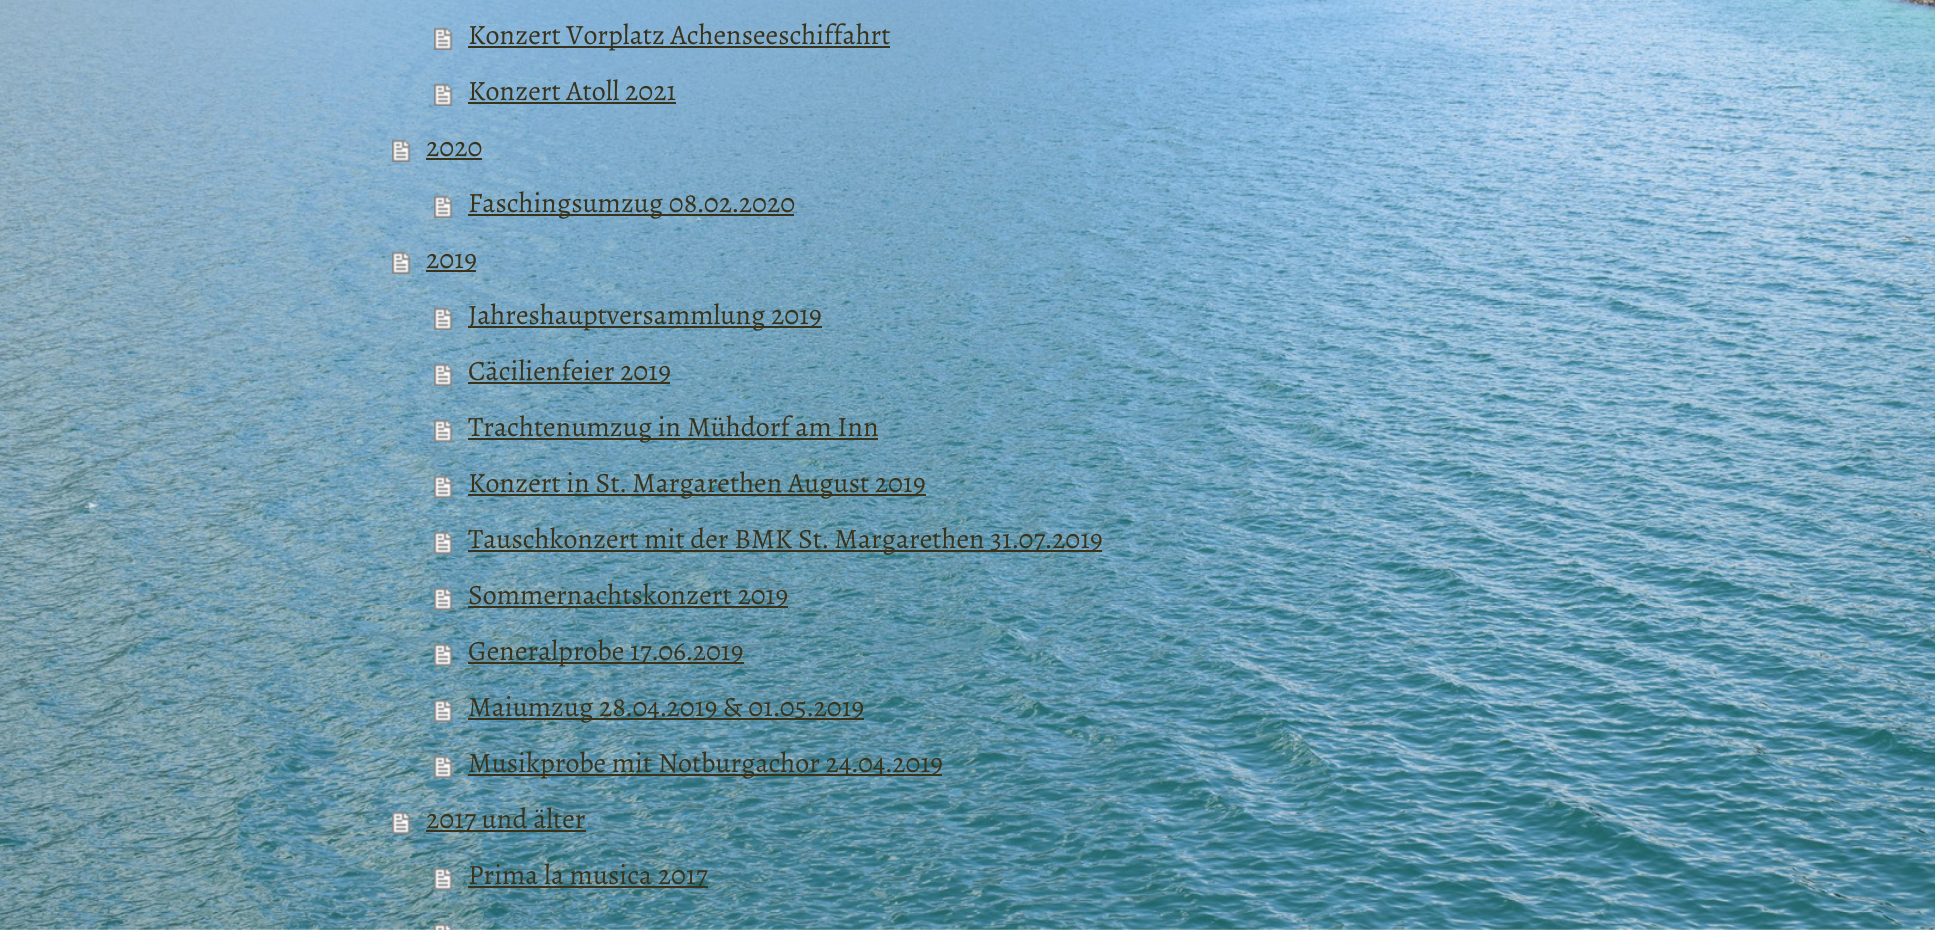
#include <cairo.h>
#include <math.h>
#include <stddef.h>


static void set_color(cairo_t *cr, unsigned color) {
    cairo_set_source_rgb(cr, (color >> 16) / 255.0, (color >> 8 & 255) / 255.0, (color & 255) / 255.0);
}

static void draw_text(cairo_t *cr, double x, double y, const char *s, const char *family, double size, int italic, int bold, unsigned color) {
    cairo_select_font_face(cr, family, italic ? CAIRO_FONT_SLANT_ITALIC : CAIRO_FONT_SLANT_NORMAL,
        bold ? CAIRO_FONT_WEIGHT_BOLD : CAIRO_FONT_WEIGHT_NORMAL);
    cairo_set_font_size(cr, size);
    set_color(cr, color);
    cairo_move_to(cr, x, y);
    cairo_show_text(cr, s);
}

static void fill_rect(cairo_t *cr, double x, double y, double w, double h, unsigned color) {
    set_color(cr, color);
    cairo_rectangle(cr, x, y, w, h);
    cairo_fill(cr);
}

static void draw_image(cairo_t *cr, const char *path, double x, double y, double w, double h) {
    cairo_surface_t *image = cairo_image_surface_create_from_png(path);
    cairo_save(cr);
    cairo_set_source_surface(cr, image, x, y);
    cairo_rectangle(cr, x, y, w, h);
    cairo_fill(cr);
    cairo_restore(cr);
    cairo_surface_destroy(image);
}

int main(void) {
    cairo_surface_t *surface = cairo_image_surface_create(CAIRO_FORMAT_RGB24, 1935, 930);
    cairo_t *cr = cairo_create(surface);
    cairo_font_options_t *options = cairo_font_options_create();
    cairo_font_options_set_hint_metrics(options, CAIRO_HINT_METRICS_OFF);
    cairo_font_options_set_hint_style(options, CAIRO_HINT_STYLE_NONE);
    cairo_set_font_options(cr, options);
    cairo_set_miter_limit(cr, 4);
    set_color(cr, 0xFFFFFF);
    cairo_paint(cr);
    draw_image(cr, "assets/img1.png", 0, 0, 1935, 930);
    draw_image(cr, "assets/img2.png", 434, 27, 19, 23);
    fill_rect(cr, 468, 46, 422, 2, 0x38331C);
    draw_text(cr, 468, 44, "Konzert Vorplatz Achenseeschiffahrt", "Alegreya", 28, 0, 0, 0x38331C);
    draw_image(cr, "assets/img3.png", 434, 83, 19, 23);
    draw_text(cr, 468, 100, "Konzert Atoll 2021", "Alegreya", 28, 0, 0, 0x38331C);
    fill_rect(cr, 468, 102, 208, 2, 0x38331C);
    draw_image(cr, "assets/img4.png", 392, 139, 19, 23);
    draw_text(cr, 426, 156, "2020", "Alegreya", 28, 0, 0, 0x38331C);
    fill_rect(cr, 426, 158, 56, 2, 0x38331C);
    draw_image(cr, "assets/img5.png", 434, 195, 19, 23);
    fill_rect(cr, 468, 214, 326, 2, 0x38331C);
    draw_text(cr, 468, 212, "Faschingsumzug 08.02.2020", "Alegreya", 28, 0, 0, 0x38331C);
    draw_image(cr, "assets/img6.png", 392, 251, 19, 23);
    fill_rect(cr, 426, 270, 50, 2, 0x38331C);
    draw_text(cr, 426, 268, "2019", "Alegreya", 28, 0, 0, 0x38331C);
    draw_image(cr, "assets/img7.png", 434, 307, 19, 23);
    fill_rect(cr, 468, 326, 354, 2, 0x38331C);
    draw_text(cr, 468, 324, "Jahreshauptversammlung 2019", "Alegreya", 28, 0, 0, 0x38331C);
    draw_image(cr, "assets/img8.png", 434, 363, 19, 23);
    fill_rect(cr, 468, 382, 202, 2, 0x38331C);
    draw_text(cr, 468, 380, "Cäcilienfeier 2019", "Alegreya", 28, 0, 0, 0x38331C);
    draw_image(cr, "assets/img9.png", 434, 419, 19, 23);
    fill_rect(cr, 468, 438, 410, 2, 0x38331C);
    draw_text(cr, 468, 436, "Trachtenumzug in Mühdorf am Inn", "Alegreya", 28, 0, 0, 0x38331C);
    draw_image(cr, "assets/img10.png", 434, 475, 19, 23);
    fill_rect(cr, 468, 494, 458, 2, 0x38331C);
    draw_text(cr, 468, 492, "Konzert in St. Margarethen August 2019", "Alegreya", 28, 0, 0, 0x38331C);
    draw_image(cr, "assets/img11.png", 434, 531, 19, 23);
    fill_rect(cr, 468, 550, 634, 2, 0x38331C);
    draw_text(cr, 468, 548, "Tauschkonzert mit der BMK St. Margarethen 31.07.2019", "Alegreya", 28, 0, 0, 0x38331C);
    draw_image(cr, "assets/img12.png", 434, 587, 19, 23);
    fill_rect(cr, 468, 606, 320, 2, 0x38331C);
    draw_text(cr, 468, 604, "Sommernachtskonzert 2019", "Alegreya", 28, 0, 0, 0x38331C);
    draw_image(cr, "assets/img13.png", 434, 643, 19, 23);
    fill_rect(cr, 468, 662, 276, 2, 0x38331C);
    draw_text(cr, 468, 660, "Generalprobe 17.06.2019", "Alegreya", 28, 0, 0, 0x38331C);
    draw_image(cr, "assets/img14.png", 434, 699, 19, 23);
    fill_rect(cr, 468, 718, 396, 2, 0x38331C);
    draw_text(cr, 468, 716, "Maiumzug 28.04.2019 & 01.05.2019", "Alegreya", 28, 0, 0, 0x38331C);
    draw_image(cr, "assets/img15.png", 434, 755, 19, 23);
    fill_rect(cr, 468, 774, 474, 2, 0x38331C);
    draw_text(cr, 468, 772, "Musikprobe mit Notburgachor 24.04.2019", "Alegreya", 28, 0, 0, 0x38331C);
    draw_image(cr, "assets/img16.png", 392, 811, 19, 23);
    fill_rect(cr, 426, 830, 160, 2, 0x38331C);
    draw_text(cr, 426, 828, "2017 und älter", "Alegreya", 28, 0, 0, 0x38331C);
    draw_image(cr, "assets/img17.png", 434, 867, 19, 23);
    fill_rect(cr, 468, 886, 240, 2, 0x38331C);
    draw_text(cr, 468, 884, "Prima la musica 2017", "Alegreya", 28, 0, 0, 0x38331C);
    draw_image(cr, "assets/img18.png", 434, 923, 19, 7);
    cairo_surface_write_to_png(surface, "output.png");
    cairo_font_options_destroy(options);
    cairo_destroy(cr);
    cairo_surface_destroy(surface);
    return 0;
}
